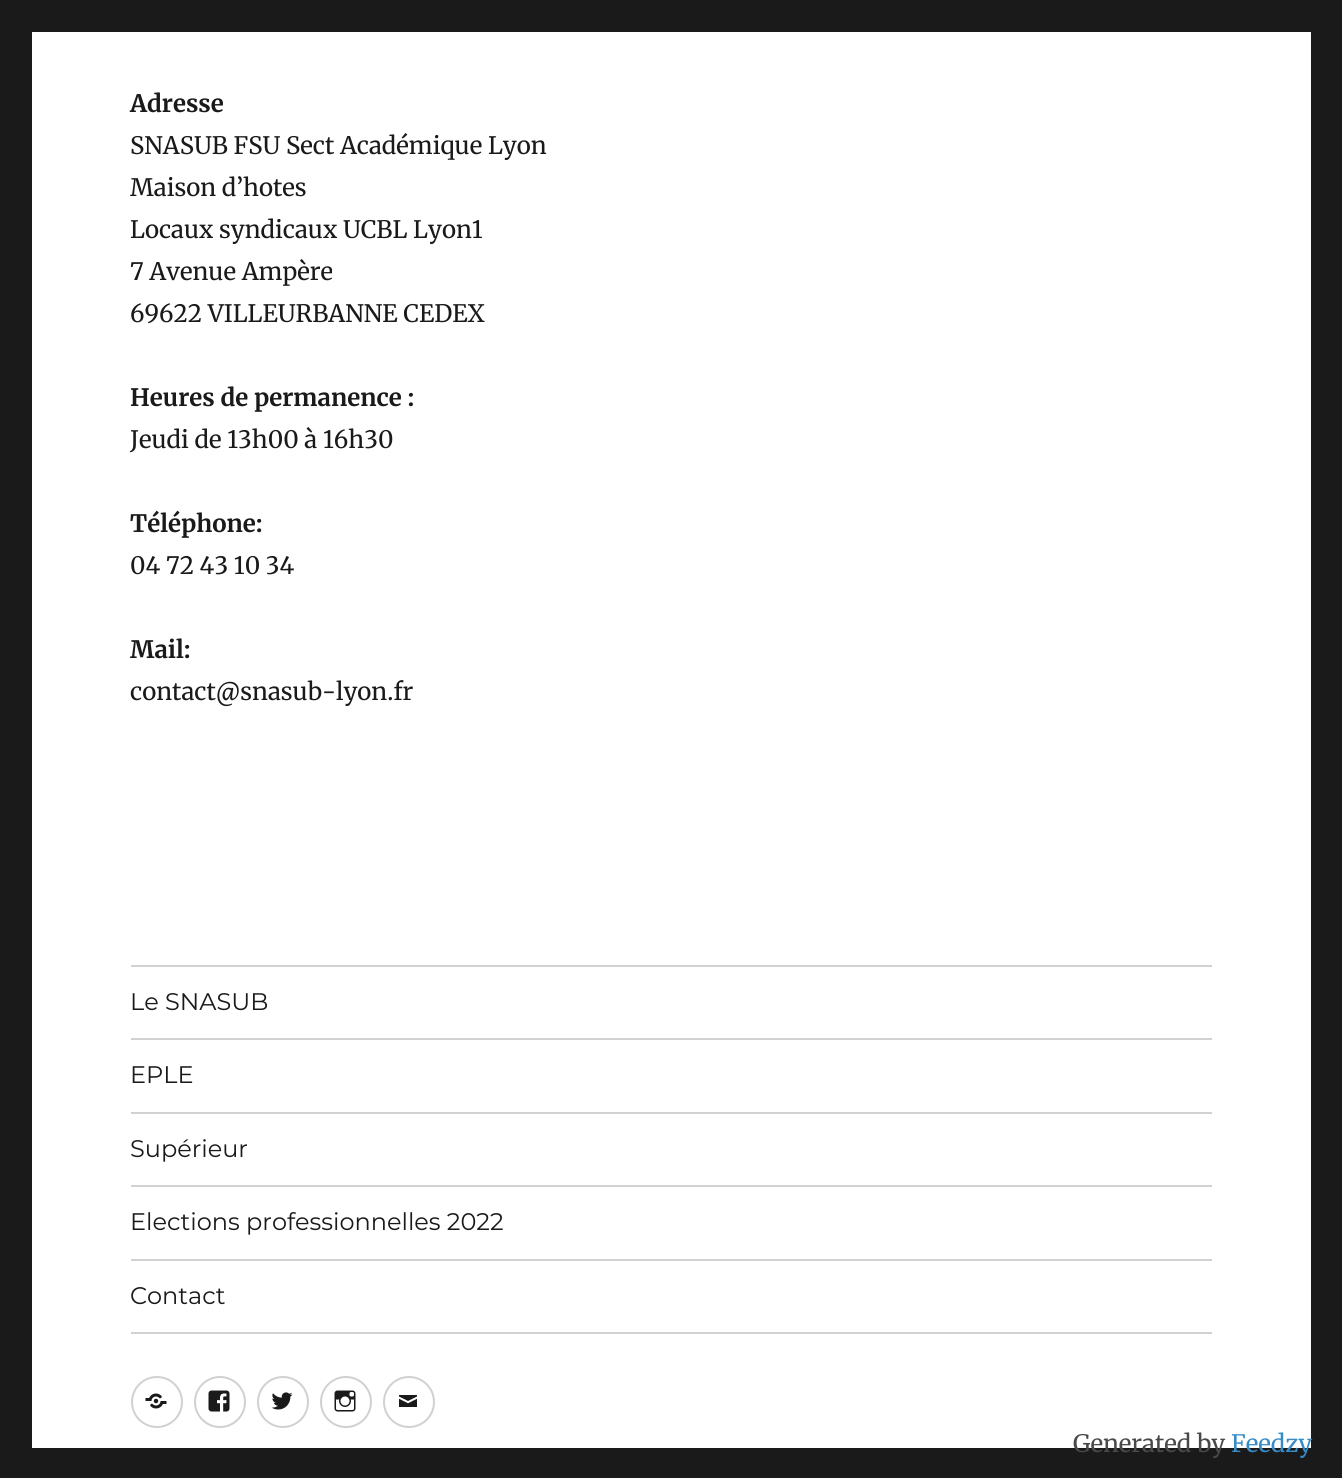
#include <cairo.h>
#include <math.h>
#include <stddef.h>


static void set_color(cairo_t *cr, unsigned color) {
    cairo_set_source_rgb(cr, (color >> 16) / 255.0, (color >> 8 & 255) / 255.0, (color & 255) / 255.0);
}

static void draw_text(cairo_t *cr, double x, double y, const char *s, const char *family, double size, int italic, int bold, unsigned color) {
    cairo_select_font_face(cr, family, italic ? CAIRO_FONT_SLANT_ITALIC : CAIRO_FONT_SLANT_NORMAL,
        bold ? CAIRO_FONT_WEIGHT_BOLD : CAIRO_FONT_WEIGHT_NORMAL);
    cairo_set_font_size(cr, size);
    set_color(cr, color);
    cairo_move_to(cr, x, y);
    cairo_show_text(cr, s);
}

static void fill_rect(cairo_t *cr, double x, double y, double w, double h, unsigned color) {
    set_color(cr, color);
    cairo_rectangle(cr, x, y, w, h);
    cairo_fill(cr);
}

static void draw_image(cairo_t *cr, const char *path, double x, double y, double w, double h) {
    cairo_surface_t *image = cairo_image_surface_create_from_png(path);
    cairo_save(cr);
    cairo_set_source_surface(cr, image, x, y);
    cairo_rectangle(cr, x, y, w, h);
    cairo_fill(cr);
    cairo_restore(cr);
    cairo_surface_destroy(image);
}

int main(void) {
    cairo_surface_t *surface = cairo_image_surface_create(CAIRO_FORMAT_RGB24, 1342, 1478);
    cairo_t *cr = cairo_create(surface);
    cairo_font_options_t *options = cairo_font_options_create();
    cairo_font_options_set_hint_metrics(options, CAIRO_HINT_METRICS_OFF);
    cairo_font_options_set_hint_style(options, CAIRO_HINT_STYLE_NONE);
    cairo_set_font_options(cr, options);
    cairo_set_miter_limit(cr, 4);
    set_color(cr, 0x1A1A1A);
    cairo_paint(cr);
    fill_rect(cr, 32, 32, 1279, 1416, 0xFFFFFF);
    draw_text(cr, 130, 112, "Adresse", "Merriweather", 24, 0, 1, 0x1A1A1A);
    draw_text(cr, 130, 154, "SNASUB FSU Sect Académique Lyon", "Merriweather", 24, 0, 0, 0x1A1A1A);
    draw_text(cr, 130, 196, "Maison d’hotes", "Merriweather", 24, 0, 0, 0x1A1A1A);
    draw_text(cr, 130, 238, "Locaux syndicaux UCBL Lyon1", "Merriweather", 24, 0, 0, 0x1A1A1A);
    draw_text(cr, 130, 280, "7 Avenue Ampère", "Merriweather", 24, 0, 0, 0x1A1A1A);
    draw_text(cr, 130, 322, "69622 VILLEURBANNE CEDEX", "Merriweather", 24, 0, 0, 0x1A1A1A);
    draw_text(cr, 130, 406, "Heures de permanence :", "Merriweather", 24, 0, 1, 0x1A1A1A);
    draw_text(cr, 130, 448, "Jeudi de 13h00 à 16h30", "Merriweather", 24, 0, 0, 0x1A1A1A);
    draw_text(cr, 130, 532, "Téléphone:", "Merriweather", 24, 0, 1, 0x1A1A1A);
    draw_text(cr, 130, 574, "04 72 43 10 34", "Merriweather", 24, 0, 0, 0x1A1A1A);
    draw_text(cr, 130, 658, "Mail:", "Merriweather", 24, 0, 1, 0x1A1A1A);
    draw_text(cr, 130, 700, "contact@snasub-lyon.fr", "Merriweather", 24, 0, 0, 0x1A1A1A);
    fill_rect(cr, 131, 1332, 1081, 2, 0xD1D1D1);
    fill_rect(cr, 131, 965, 1081, 2, 0xD1D1D1);
    draw_text(cr, 130, 1010, "Le SNASUB", "Montserrat", 24, 0, 0, 0x1A1A1A);
    fill_rect(cr, 131, 1038, 1081, 2, 0xD1D1D1);
    draw_text(cr, 130, 1083, "EPLE", "Montserrat", 24, 0, 0, 0x1A1A1A);
    fill_rect(cr, 131, 1112, 1081, 2, 0xD1D1D1);
    draw_text(cr, 130, 1157, "Supérieur", "Montserrat", 24, 0, 0, 0x1A1A1A);
    fill_rect(cr, 131, 1185, 1081, 2, 0xD1D1D1);
    draw_text(cr, 130, 1230, "Elections professionnelles 2022", "Montserrat", 24, 0, 0, 0x1A1A1A);
    fill_rect(cr, 131, 1259, 1081, 2, 0xD1D1D1);
    draw_text(cr, 130, 1304, "Contact", "Montserrat", 24, 0, 0, 0x1A1A1A);
    cairo_new_path(cr);
    cairo_arc(cr, 157, 1402, 25, 0, 2 * M_PI);
    set_color(cr, 0xD1D1D1);
    cairo_stroke(cr);
    draw_image(cr, "assets/img1.png", 145, 1393, 22, 16);
    cairo_arc(cr, 220, 1402, 25, 0, 2 * M_PI);
    cairo_stroke(cr);
    draw_image(cr, "assets/img2.png", 208, 1390, 22, 22);
    cairo_arc(cr, 283, 1402, 25, 0, 2 * M_PI);
    cairo_stroke(cr);
    draw_image(cr, "assets/img3.png", 271, 1392, 22, 18);
    cairo_arc(cr, 346, 1402, 25, 0, 2 * M_PI);
    cairo_stroke(cr);
    draw_image(cr, "assets/img4.png", 334, 1390, 22, 22);
    cairo_arc(cr, 409, 1402, 25, 0, 2 * M_PI);
    cairo_stroke(cr);
    draw_image(cr, "assets/img5.png", 399, 1395, 18, 12);
    draw_text(cr, 1073, 1452, "Generated by", "Merriweather", 24, 0, 0, 0x494949);
    draw_text(cr, 1231, 1452, "Feedzy", "Merriweather", 24, 0, 0, 0x378CC6);
    cairo_surface_write_to_png(surface, "output.png");
    cairo_font_options_destroy(options);
    cairo_destroy(cr);
    cairo_surface_destroy(surface);
    return 0;
}
